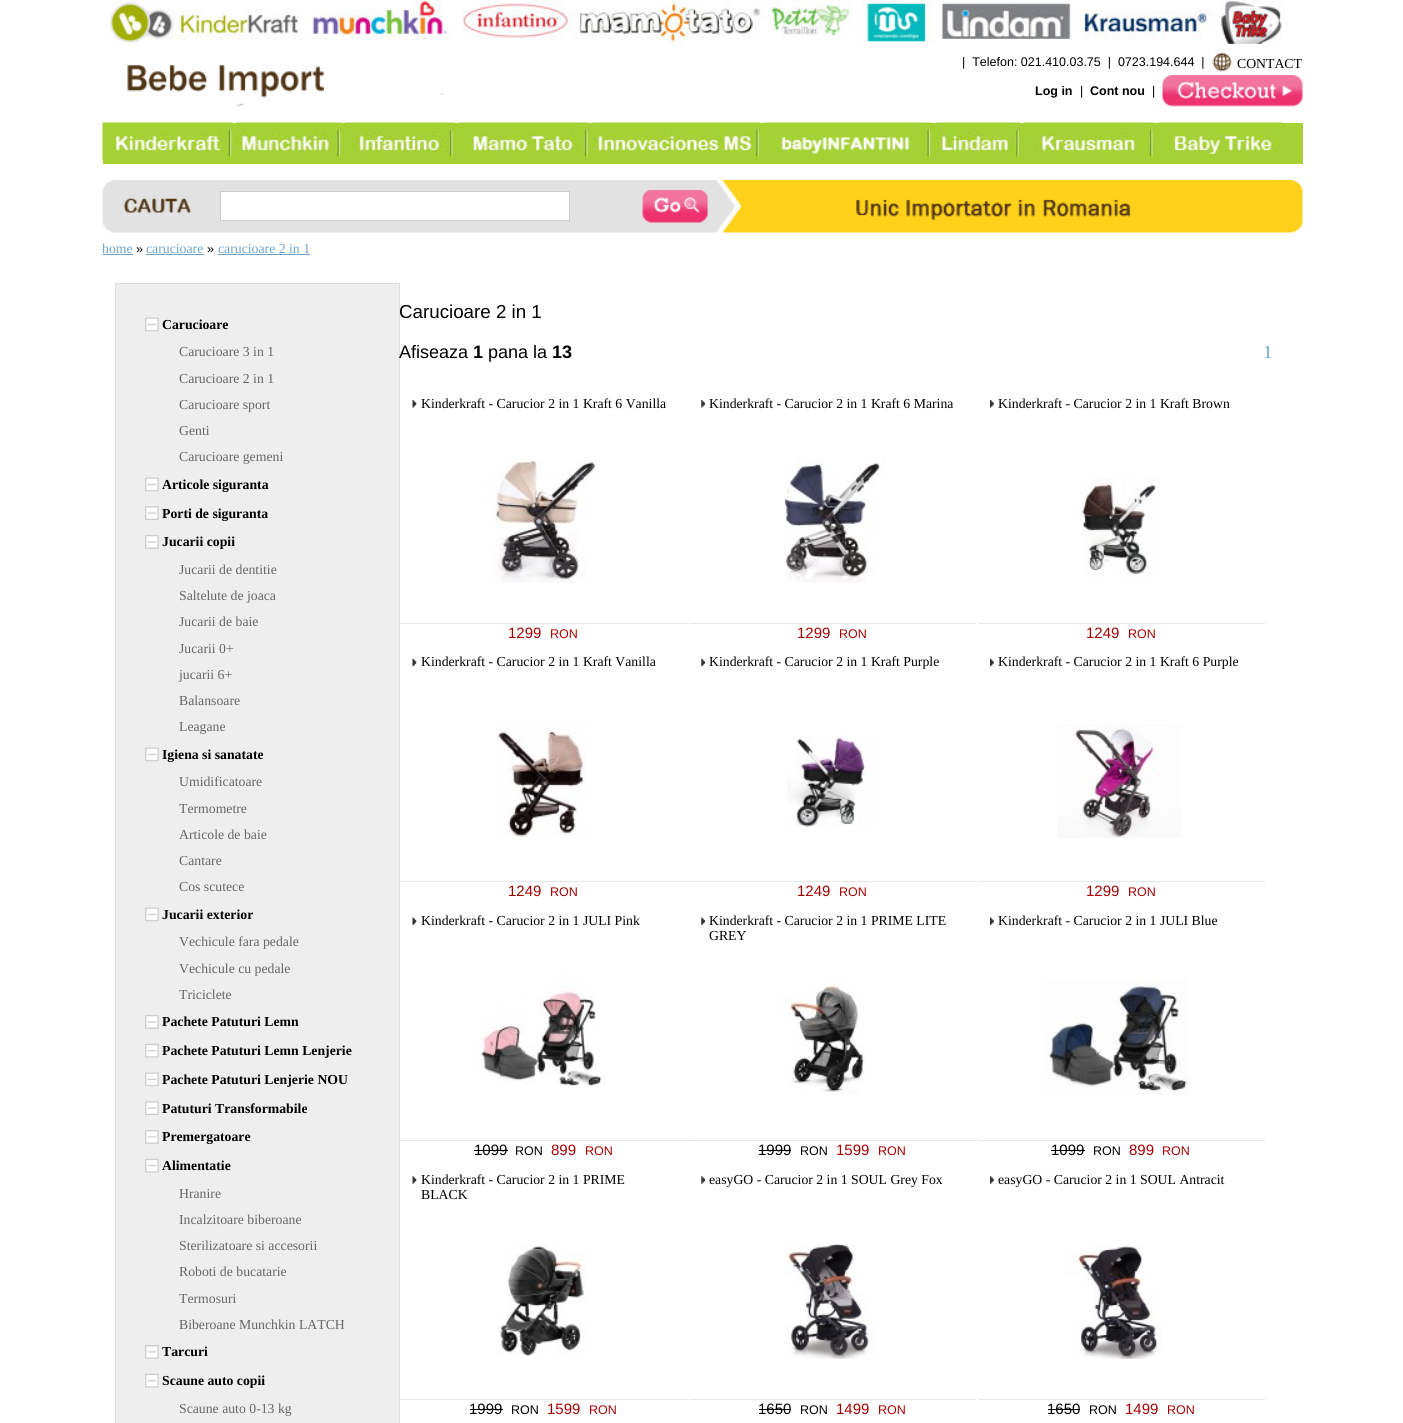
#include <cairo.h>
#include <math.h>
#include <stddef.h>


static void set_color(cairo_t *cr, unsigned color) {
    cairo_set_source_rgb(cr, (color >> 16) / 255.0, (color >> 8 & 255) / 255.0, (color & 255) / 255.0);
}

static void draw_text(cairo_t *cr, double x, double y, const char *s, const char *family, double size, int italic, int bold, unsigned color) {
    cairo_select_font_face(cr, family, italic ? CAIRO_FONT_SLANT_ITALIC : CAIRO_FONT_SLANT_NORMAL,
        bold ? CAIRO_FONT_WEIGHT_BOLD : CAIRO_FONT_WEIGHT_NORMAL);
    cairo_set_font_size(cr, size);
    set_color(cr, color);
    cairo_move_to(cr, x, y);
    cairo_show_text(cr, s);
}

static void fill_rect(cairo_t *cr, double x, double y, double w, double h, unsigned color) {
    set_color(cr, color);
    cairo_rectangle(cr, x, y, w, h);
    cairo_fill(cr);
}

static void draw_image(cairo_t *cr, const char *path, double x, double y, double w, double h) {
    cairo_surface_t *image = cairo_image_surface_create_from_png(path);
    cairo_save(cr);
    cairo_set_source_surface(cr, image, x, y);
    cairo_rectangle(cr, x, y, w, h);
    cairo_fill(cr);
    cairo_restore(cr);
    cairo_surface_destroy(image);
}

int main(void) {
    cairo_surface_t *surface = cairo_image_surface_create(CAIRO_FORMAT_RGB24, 1403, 1423);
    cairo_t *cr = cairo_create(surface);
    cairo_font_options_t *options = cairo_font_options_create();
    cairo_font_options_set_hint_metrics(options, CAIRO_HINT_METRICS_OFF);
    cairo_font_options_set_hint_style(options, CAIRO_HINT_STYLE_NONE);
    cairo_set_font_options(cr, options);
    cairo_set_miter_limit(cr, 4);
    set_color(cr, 0xFFFFFF);
    cairo_paint(cr);
    draw_image(cr, "assets/img1.png", 105, 0, 1177, 44);
    draw_image(cr, "assets/img2.png", 127, 64, 197, 43);
    draw_text(cr, 962, 66, "|  Telefon: 021.410.03.75  |  0723.194.644  |", "Liberation Sans", 12.5, 0, 0, 0x000000);
    draw_image(cr, "assets/img3.png", 1212, 52, 20, 20);
    draw_text(cr, 1237, 68, "CONTACT", "Liberation Serif", 13.75, 0, 0, 0x000000);
    draw_image(cr, "assets/img4.png", 440, 93, 4, 2);
    draw_text(cr, 1035, 95, "Log in", "Liberation Sans", 12.5, 0, 1, 0x000000);
    draw_text(cr, 1080, 95, "|", "Liberation Sans", 12.5, 0, 0, 0x000000);
    draw_text(cr, 1090, 95, "Cont nou", "Liberation Sans", 12.5, 0, 1, 0x000000);
    draw_text(cr, 1152, 95, "|", "Liberation Sans", 12.5, 0, 0, 0x000000);
    draw_image(cr, "assets/img5.png", 1162, 75, 141, 32);
    fill_rect(cr, 103, 123, 1200, 41, 0xA5D135);
    draw_image(cr, "assets/img6.png", 102, 122, 126, 38);
    draw_image(cr, "assets/img7.png", 227, 122, 6, 38);
    draw_image(cr, "assets/img8.png", 236, 122, 101, 31);
    draw_image(cr, "assets/img9.png", 336, 122, 6, 38);
    draw_image(cr, "assets/img10.png", 345, 122, 104, 31);
    draw_image(cr, "assets/img11.png", 448, 122, 6, 38);
    draw_image(cr, "assets/img12.png", 458, 122, 126, 31);
    draw_image(cr, "assets/img13.png", 583, 122, 6, 38);
    draw_image(cr, "assets/img14.png", 592, 122, 163, 31);
    draw_image(cr, "assets/img15.png", 755, 122, 5, 38);
    draw_image(cr, "assets/img16.png", 763, 122, 164, 38);
    draw_image(cr, "assets/img17.png", 926, 122, 6, 38);
    draw_image(cr, "assets/img18.png", 936, 122, 79, 31);
    draw_image(cr, "assets/img19.png", 1015, 122, 5, 38);
    draw_image(cr, "assets/img20.png", 1023, 122, 126, 31);
    draw_image(cr, "assets/img13.png", 1148, 122, 6, 38);
    draw_image(cr, "assets/img21.png", 1157, 122, 126, 37);
    draw_image(cr, "assets/img22.png", 102, 180, 1201, 53);
    set_color(cr, 0xFFFFFF);
    cairo_rectangle(cr, 220.5, 191.5, 349, 29);
    cairo_fill_preserve(cr);
    set_color(cr, 0xCCCCCC);
    cairo_set_line_width(cr, 1);
    cairo_stroke(cr);
    draw_text(cr, 102, 253, "home", "Liberation Serif", 13.75, 0, 0, 0x6DA2CC);
    fill_rect(cr, 103, 254, 30, 1, 0x6DA2CC);
    draw_text(cr, 136, 253, "»", "Liberation Sans", 12.5, 0, 0, 0x000000);
    draw_text(cr, 146, 253, "carucioare", "Liberation Serif", 13.75, 0, 0, 0x6DA2CC);
    fill_rect(cr, 146, 254, 58, 1, 0x6DA2CC);
    draw_text(cr, 207, 253, "»", "Liberation Sans", 12.5, 0, 0, 0x000000);
    draw_text(cr, 218, 253, "carucioare 2 in 1", "Liberation Serif", 13.75, 0, 0, 0x6DA2CC);
    fill_rect(cr, 218, 254, 92, 1, 0x6DA2CC);
    set_color(cr, 0xEEEEEE);
    cairo_rectangle(cr, 115.5, 283.5, 284, 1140);
    cairo_fill_preserve(cr);
    set_color(cr, 0xDDDDDD);
    cairo_stroke(cr);
    draw_image(cr, "assets/img23.png", 145, 317, 14, 15);
    draw_text(cr, 162, 329, "Carucioare", "Liberation Serif", 13.75, 0, 1, 0x000000);
    draw_text(cr, 179, 356, "Carucioare 3 in 1", "Liberation Serif", 13.75, 0, 0, 0x666666);
    draw_text(cr, 179, 383, "Carucioare 2 in 1", "Liberation Serif", 13.75, 0, 0, 0x666666);
    draw_text(cr, 179, 409, "Carucioare sport", "Liberation Serif", 13.75, 0, 0, 0x666666);
    draw_text(cr, 179, 435, "Genti", "Liberation Serif", 13.75, 0, 0, 0x666666);
    draw_text(cr, 179, 461, "Carucioare gemeni", "Liberation Serif", 13.75, 0, 0, 0x666666);
    draw_image(cr, "assets/img23.png", 145, 477, 14, 15);
    draw_text(cr, 162, 489, "Articole siguranta", "Liberation Serif", 13.75, 0, 1, 0x000000);
    draw_image(cr, "assets/img24.png", 145, 506, 14, 14);
    draw_text(cr, 162, 518, "Porti de siguranta", "Liberation Serif", 13.75, 0, 1, 0x000000);
    draw_image(cr, "assets/img25.png", 145, 535, 14, 14);
    draw_text(cr, 162, 546, "Jucarii copii", "Liberation Serif", 13.75, 0, 1, 0x000000);
    draw_text(cr, 179, 574, "Jucarii de dentitie", "Liberation Serif", 13.75, 0, 0, 0x666666);
    draw_text(cr, 179, 600, "Saltelute de joaca", "Liberation Serif", 13.75, 0, 0, 0x666666);
    draw_text(cr, 179, 626, "Jucarii de baie", "Liberation Serif", 13.75, 0, 0, 0x666666);
    draw_text(cr, 179, 653, "Jucarii 0+", "Liberation Serif", 13.75, 0, 0, 0x666666);
    draw_text(cr, 179, 679, "jucarii 6+", "Liberation Serif", 13.75, 0, 0, 0x666666);
    draw_text(cr, 179, 705, "Balansoare", "Liberation Serif", 13.75, 0, 0, 0x666666);
    draw_text(cr, 179, 731, "Leagane", "Liberation Serif", 13.75, 0, 0, 0x666666);
    draw_image(cr, "assets/img23.png", 145, 747, 14, 15);
    draw_text(cr, 162, 759, "Igiena si sanatate", "Liberation Serif", 13.75, 0, 1, 0x000000);
    draw_text(cr, 179, 786, "Umidificatoare", "Liberation Serif", 13.75, 0, 0, 0x666666);
    draw_text(cr, 179, 813, "Termometre", "Liberation Serif", 13.75, 0, 0, 0x666666);
    draw_text(cr, 179, 839, "Articole de baie", "Liberation Serif", 13.75, 0, 0, 0x666666);
    draw_text(cr, 179, 865, "Cantare", "Liberation Serif", 13.75, 0, 0, 0x666666);
    draw_text(cr, 179, 891, "Cos scutece", "Liberation Serif", 13.75, 0, 0, 0x666666);
    draw_image(cr, "assets/img23.png", 145, 907, 14, 15);
    draw_text(cr, 162, 919, "Jucarii exterior", "Liberation Serif", 13.75, 0, 1, 0x000000);
    draw_text(cr, 179, 946, "Vechicule fara pedale", "Liberation Serif", 13.75, 0, 0, 0x666666);
    draw_text(cr, 179, 973, "Vechicule cu pedale", "Liberation Serif", 13.75, 0, 0, 0x666666);
    draw_text(cr, 179, 999, "Triciclete", "Liberation Serif", 13.75, 0, 0, 0x666666);
    draw_image(cr, "assets/img25.png", 145, 1015, 14, 14);
    draw_text(cr, 162, 1026, "Pachete Patuturi Lemn", "Liberation Serif", 13.75, 0, 1, 0x000000);
    draw_image(cr, "assets/img26.png", 145, 1043, 14, 15);
    draw_text(cr, 162, 1055, "Pachete Patuturi Lemn Lenjerie", "Liberation Serif", 13.75, 0, 1, 0x000000);
    draw_image(cr, "assets/img23.png", 145, 1072, 14, 15);
    draw_text(cr, 162, 1084, "Pachete Patuturi Lenjerie NOU", "Liberation Serif", 13.75, 0, 1, 0x000000);
    draw_image(cr, "assets/img24.png", 145, 1101, 14, 14);
    draw_text(cr, 162, 1113, "Patuturi Transformabile", "Liberation Serif", 13.75, 0, 1, 0x000000);
    draw_image(cr, "assets/img25.png", 145, 1130, 14, 14);
    draw_text(cr, 162, 1141, "Premergatoare", "Liberation Serif", 13.75, 0, 1, 0x000000);
    draw_image(cr, "assets/img26.png", 145, 1158, 14, 15);
    draw_text(cr, 162, 1170, "Alimentatie", "Liberation Serif", 13.75, 0, 1, 0x000000);
    draw_text(cr, 179, 1198, "Hranire", "Liberation Serif", 13.75, 0, 0, 0x666666);
    draw_text(cr, 179, 1224, "Incalzitoare biberoane", "Liberation Serif", 13.75, 0, 0, 0x666666);
    draw_text(cr, 179, 1250, "Sterilizatoare si accesorii", "Liberation Serif", 13.75, 0, 0, 0x666666);
    draw_text(cr, 179, 1276, "Roboti de bucatarie", "Liberation Serif", 13.75, 0, 0, 0x666666);
    draw_text(cr, 179, 1303, "Termosuri", "Liberation Serif", 13.75, 0, 0, 0x666666);
    draw_text(cr, 179, 1329, "Biberoane Munchkin LATCH", "Liberation Serif", 13.75, 0, 0, 0x666666);
    draw_image(cr, "assets/img25.png", 145, 1345, 14, 14);
    draw_text(cr, 162, 1356, "Tarcuri", "Liberation Serif", 13.75, 0, 1, 0x000000);
    draw_image(cr, "assets/img26.png", 145, 1373, 14, 15);
    draw_text(cr, 162, 1385, "Scaune auto copii", "Liberation Serif", 13.75, 0, 1, 0x000000);
    draw_text(cr, 179, 1413, "Scaune auto 0-13 kg", "Liberation Serif", 13.75, 0, 0, 0x666666);
    draw_text(cr, 399, 318, "Carucioare 2 in 1", "Liberation Sans", 18.75, 0, 0, 0x000000);
    draw_text(cr, 399, 358, "Afiseaza", "Liberation Sans", 18, 0, 0, 0x000000);
    draw_text(cr, 473, 358, "1", "Liberation Sans", 18, 0, 1, 0x000000);
    draw_text(cr, 488, 358, "pana la", "Liberation Sans", 18, 0, 0, 0x000000);
    draw_text(cr, 552, 358, "13", "Liberation Sans", 18, 0, 1, 0x000000);
    draw_text(cr, 1263, 358, "1", "Liberation Serif", 18.75, 0, 0, 0x6DA2CC);
    fill_rect(cr, 400, 623, 288, 1, 0xE7E6E6);
    draw_image(cr, "assets/img27.png", 412, 400, 5, 8);
    draw_text(cr, 421, 408, "Kinderkraft - Carucior 2 in 1 Kraft 6 Vanilla", "Liberation Serif", 13.75, 0, 0, 0x000000);
    draw_image(cr, "assets/img28.png", 486, 458, 110, 125);
    draw_text(cr, 508, 638, "1299", "Liberation Sans", 15, 0, 0, 0xA30101);
    draw_text(cr, 550, 638, "RON", "Liberation Sans", 12.5, 0, 0, 0xA30101);
    fill_rect(cr, 689, 623, 287, 1, 0xE7E6E6);
    draw_image(cr, "assets/img29.png", 701, 400, 4, 8);
    draw_text(cr, 709, 408, "Kinderkraft - Carucior 2 in 1 Kraft 6 Marina", "Liberation Serif", 13.75, 0, 0, 0x000000);
    draw_image(cr, "assets/img30.png", 784, 457, 101, 126);
    draw_text(cr, 797, 638, "1299", "Liberation Sans", 15, 0, 0, 0xA30101);
    draw_text(cr, 839, 638, "RON", "Liberation Sans", 12.5, 0, 0, 0xA30101);
    fill_rect(cr, 978, 623, 287, 1, 0xE7E6E6);
    draw_image(cr, "assets/img31.png", 990, 400, 4, 8);
    draw_text(cr, 998, 408, "Kinderkraft - Carucior 2 in 1 Kraft Brown", "Liberation Serif", 13.75, 0, 0, 0x000000);
    draw_image(cr, "assets/img32.png", 1082, 478, 78, 99);
    draw_text(cr, 1086, 638, "1249", "Liberation Sans", 15, 0, 0, 0xA30101);
    draw_text(cr, 1128, 638, "RON", "Liberation Sans", 12.5, 0, 0, 0xA30101);
    fill_rect(cr, 400, 881, 288, 1, 0xE7E6E6);
    draw_image(cr, "assets/img33.png", 412, 658, 5, 9);
    draw_text(cr, 421, 666, "Kinderkraft - Carucior 2 in 1 Kraft Vanilla", "Liberation Serif", 13.75, 0, 0, 0x000000);
    draw_image(cr, "assets/img34.png", 497, 721, 89, 117);
    draw_text(cr, 508, 896, "1249", "Liberation Sans", 15, 0, 0, 0xA30101);
    draw_text(cr, 550, 896, "RON", "Liberation Sans", 12.5, 0, 0, 0xA30101);
    fill_rect(cr, 689, 881, 287, 1, 0xE7E6E6);
    draw_image(cr, "assets/img35.png", 701, 658, 4, 9);
    draw_text(cr, 709, 666, "Kinderkraft - Carucior 2 in 1 Kraft Purple", "Liberation Serif", 13.75, 0, 0, 0x000000);
    draw_image(cr, "assets/img36.png", 787, 735, 88, 92);
    draw_text(cr, 797, 896, "1249", "Liberation Sans", 15, 0, 0, 0xA30101);
    draw_text(cr, 839, 896, "RON", "Liberation Sans", 12.5, 0, 0, 0xA30101);
    fill_rect(cr, 978, 881, 287, 1, 0xE7E6E6);
    draw_image(cr, "assets/img37.png", 990, 658, 4, 9);
    draw_text(cr, 998, 666, "Kinderkraft - Carucior 2 in 1 Kraft 6 Purple", "Liberation Serif", 13.75, 0, 0, 0x000000);
    draw_image(cr, "assets/img38.png", 1057, 724, 124, 114);
    draw_text(cr, 1086, 896, "1299", "Liberation Sans", 15, 0, 0, 0xA30101);
    draw_text(cr, 1128, 896, "RON", "Liberation Sans", 12.5, 0, 0, 0xA30101);
    fill_rect(cr, 400, 1140, 288, 1, 0xE7E6E6);
    draw_image(cr, "assets/img39.png", 412, 917, 5, 8);
    draw_text(cr, 421, 925, "Kinderkraft - Carucior 2 in 1 JULI Pink", "Liberation Serif", 13.75, 0, 0, 0x000000);
    draw_image(cr, "assets/img40.png", 479, 975, 127, 112);
    draw_text(cr, 474, 1155, "1099", "Liberation Sans", 15, 0, 0, 0x000000);
    fill_rect(cr, 474, 1150, 34, 1, 0x000000);
    draw_text(cr, 515, 1155, "RON", "Liberation Sans", 12.5, 0, 0, 0x000000);
    draw_text(cr, 551, 1155, "899", "Liberation Sans", 15, 0, 0, 0xA30101);
    draw_text(cr, 585, 1155, "RON", "Liberation Sans", 12.5, 0, 0, 0xA30101);
    fill_rect(cr, 689, 1140, 287, 1, 0xE7E6E6);
    draw_image(cr, "assets/img41.png", 701, 917, 4, 8);
    draw_text(cr, 709, 925, "Kinderkraft - Carucior 2 in 1 PRIME LITE", "Liberation Serif", 13.75, 0, 0, 0x000000);
    draw_text(cr, 709, 940, "GREY", "Liberation Serif", 13.75, 0, 0, 0x000000);
    draw_image(cr, "assets/img42.png", 780, 975, 85, 120);
    draw_text(cr, 758, 1155, "1999", "Liberation Sans", 15, 0, 0, 0x000000);
    fill_rect(cr, 759, 1150, 32, 1, 0x000000);
    draw_text(cr, 800, 1155, "RON", "Liberation Sans", 12.5, 0, 0, 0x000000);
    draw_text(cr, 836, 1155, "1599", "Liberation Sans", 15, 0, 0, 0xA30101);
    draw_text(cr, 878, 1155, "RON", "Liberation Sans", 12.5, 0, 0, 0xA30101);
    fill_rect(cr, 978, 1140, 287, 1, 0xE7E6E6);
    draw_image(cr, "assets/img43.png", 990, 917, 4, 8);
    draw_text(cr, 998, 925, "Kinderkraft - Carucior 2 in 1 JULI Blue", "Liberation Serif", 13.75, 0, 0, 0x000000);
    draw_image(cr, "assets/img44.png", 1044, 978, 148, 117);
    draw_text(cr, 1051, 1155, "1099", "Liberation Sans", 15, 0, 0, 0x000000);
    fill_rect(cr, 1051, 1150, 34, 1, 0x000000);
    draw_text(cr, 1093, 1155, "RON", "Liberation Sans", 12.5, 0, 0, 0x000000);
    draw_text(cr, 1129, 1155, "899", "Liberation Sans", 15, 0, 0, 0xA30101);
    draw_text(cr, 1162, 1155, "RON", "Liberation Sans", 12.5, 0, 0, 0xA30101);
    fill_rect(cr, 400, 1399, 288, 1, 0xE7E6E6);
    draw_image(cr, "assets/img45.png", 412, 1176, 5, 8);
    draw_text(cr, 421, 1184, "Kinderkraft - Carucior 2 in 1 PRIME", "Liberation Serif", 13.75, 0, 0, 0x000000);
    draw_text(cr, 421, 1199, "BLACK", "Liberation Serif", 13.75, 0, 0, 0x000000);
    draw_image(cr, "assets/img46.png", 498, 1244, 88, 113);
    draw_text(cr, 469, 1414, "1999", "Liberation Sans", 15, 0, 0, 0x000000);
    fill_rect(cr, 470, 1409, 33, 1, 0x000000);
    draw_text(cr, 511, 1414, "RON", "Liberation Sans", 12.5, 0, 0, 0x000000);
    draw_text(cr, 547, 1414, "1599", "Liberation Sans", 15, 0, 0, 0xA30101);
    draw_text(cr, 589, 1414, "RON", "Liberation Sans", 12.5, 0, 0, 0xA30101);
    fill_rect(cr, 689, 1399, 287, 1, 0xE7E6E6);
    draw_image(cr, "assets/img47.png", 701, 1176, 4, 8);
    draw_text(cr, 709, 1184, "easyGO - Carucior 2 in 1 SOUL Grey Fox", "Liberation Serif", 13.75, 0, 0, 0x000000);
    draw_image(cr, "assets/img48.png", 785, 1243, 90, 116);
    draw_text(cr, 758, 1414, "1650", "Liberation Sans", 15, 0, 0, 0x000000);
    fill_rect(cr, 759, 1409, 32, 1, 0x000000);
    draw_text(cr, 800, 1414, "RON", "Liberation Sans", 12.5, 0, 0, 0x000000);
    draw_text(cr, 836, 1414, "1499", "Liberation Sans", 15, 0, 0, 0xA30101);
    draw_text(cr, 878, 1414, "RON", "Liberation Sans", 12.5, 0, 0, 0xA30101);
    fill_rect(cr, 978, 1399, 287, 1, 0xE7E6E6);
    draw_image(cr, "assets/img49.png", 990, 1176, 4, 8);
    draw_text(cr, 998, 1184, "easyGO - Carucior 2 in 1 SOUL Antracit", "Liberation Serif", 13.75, 0, 0, 0x000000);
    draw_image(cr, "assets/img50.png", 1064, 1245, 99, 114);
    draw_text(cr, 1047, 1414, "1650", "Liberation Sans", 15, 0, 0, 0x000000);
    fill_rect(cr, 1048, 1409, 32, 1, 0x000000);
    draw_text(cr, 1089, 1414, "RON", "Liberation Sans", 12.5, 0, 0, 0x000000);
    draw_text(cr, 1125, 1414, "1499", "Liberation Sans", 15, 0, 0, 0xA30101);
    draw_text(cr, 1167, 1414, "RON", "Liberation Sans", 12.5, 0, 0, 0xA30101);
    cairo_surface_write_to_png(surface, "output.png");
    cairo_font_options_destroy(options);
    cairo_destroy(cr);
    cairo_surface_destroy(surface);
    return 0;
}
